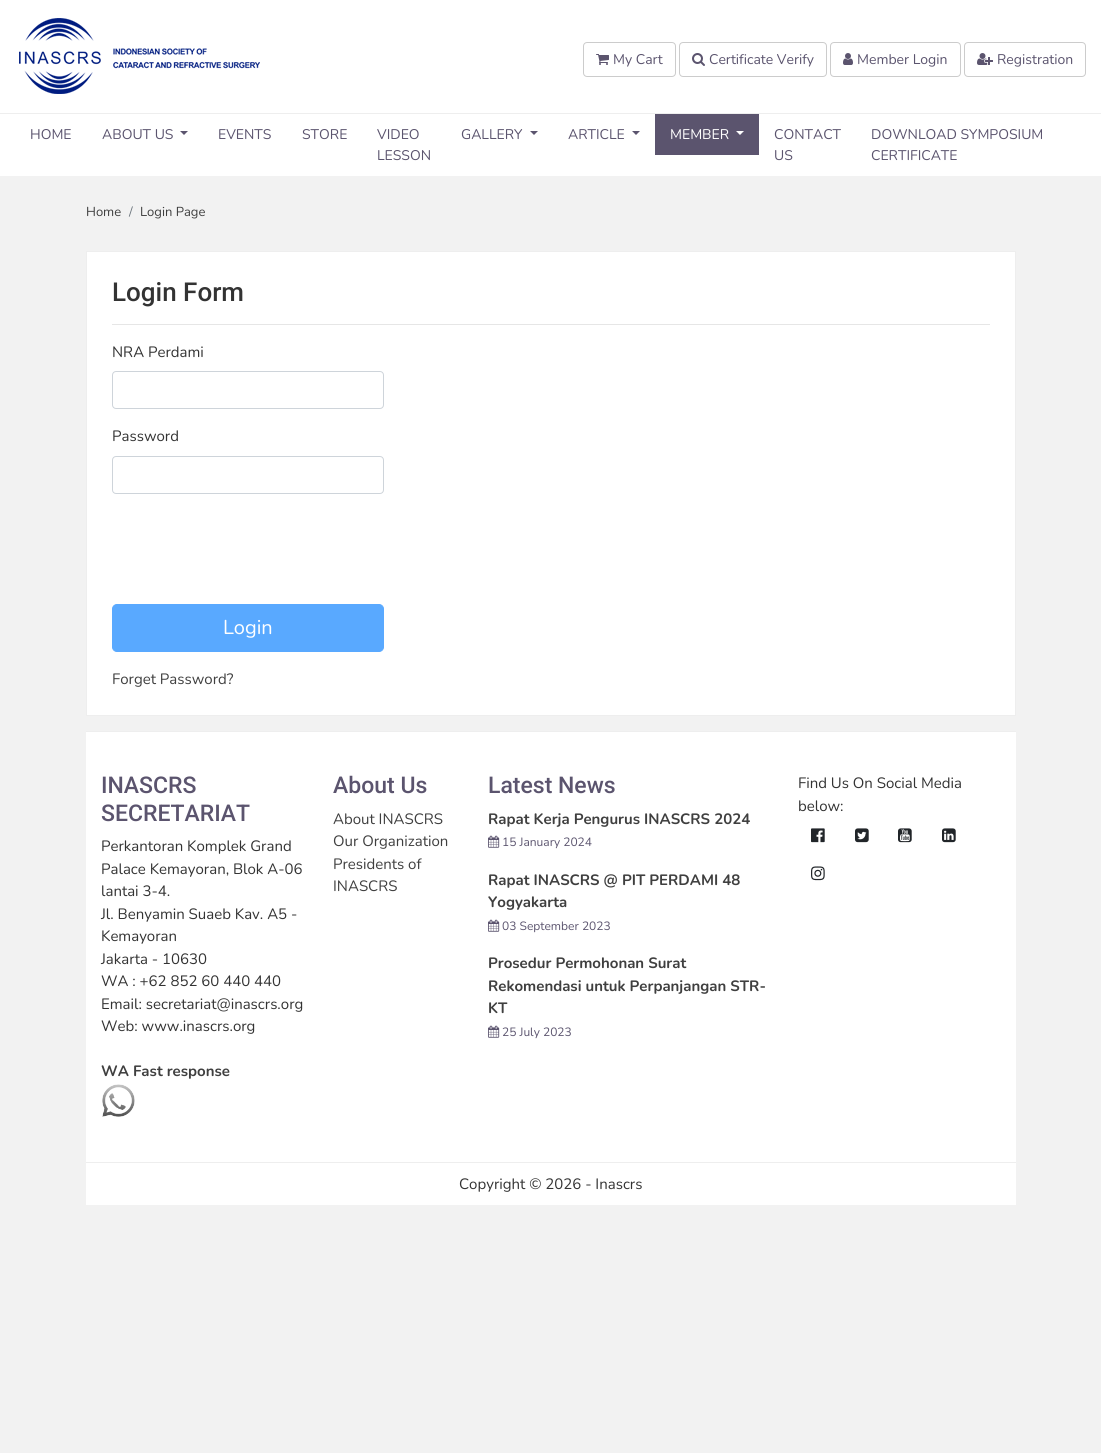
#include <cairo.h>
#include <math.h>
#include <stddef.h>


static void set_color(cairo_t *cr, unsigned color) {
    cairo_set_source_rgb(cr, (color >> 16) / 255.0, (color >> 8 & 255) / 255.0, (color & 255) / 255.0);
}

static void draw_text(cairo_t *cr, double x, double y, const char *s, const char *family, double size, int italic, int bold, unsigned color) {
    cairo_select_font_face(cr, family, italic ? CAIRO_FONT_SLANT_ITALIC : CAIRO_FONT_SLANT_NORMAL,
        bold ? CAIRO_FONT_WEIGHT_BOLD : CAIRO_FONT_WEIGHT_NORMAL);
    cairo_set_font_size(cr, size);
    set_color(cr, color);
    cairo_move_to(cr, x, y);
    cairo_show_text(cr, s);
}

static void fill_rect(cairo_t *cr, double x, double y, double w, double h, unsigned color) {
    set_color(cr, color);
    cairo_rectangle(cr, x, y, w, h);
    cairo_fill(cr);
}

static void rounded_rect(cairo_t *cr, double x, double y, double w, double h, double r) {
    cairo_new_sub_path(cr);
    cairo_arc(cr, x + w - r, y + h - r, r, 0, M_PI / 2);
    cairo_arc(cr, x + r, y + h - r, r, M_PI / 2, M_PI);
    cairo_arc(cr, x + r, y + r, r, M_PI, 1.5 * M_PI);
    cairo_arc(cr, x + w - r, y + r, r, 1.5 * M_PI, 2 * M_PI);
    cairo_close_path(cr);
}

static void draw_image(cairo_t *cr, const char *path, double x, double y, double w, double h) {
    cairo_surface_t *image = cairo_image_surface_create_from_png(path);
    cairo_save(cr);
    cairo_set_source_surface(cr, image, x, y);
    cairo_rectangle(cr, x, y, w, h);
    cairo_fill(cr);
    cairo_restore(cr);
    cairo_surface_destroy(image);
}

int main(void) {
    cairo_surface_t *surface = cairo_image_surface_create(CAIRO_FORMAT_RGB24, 1101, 1453);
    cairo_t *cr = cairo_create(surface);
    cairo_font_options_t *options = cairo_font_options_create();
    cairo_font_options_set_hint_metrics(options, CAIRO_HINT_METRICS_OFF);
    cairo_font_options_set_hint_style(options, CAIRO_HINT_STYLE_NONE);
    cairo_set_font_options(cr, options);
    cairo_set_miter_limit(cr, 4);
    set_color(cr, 0xF2F2F2);
    cairo_paint(cr);
    fill_rect(cr, 0, 0, 1101, 113, 0xFFFFFF);
    draw_image(cr, "assets/img1.png", 19, 18, 241, 76);
    rounded_rect(cr, 583.5, 42.5, 92, 34, 3.5);
    set_color(cr, 0xCCCCCC);
    cairo_set_line_width(cr, 1);
    cairo_stroke(cr);
    draw_image(cr, "assets/img2.png", 596, 54, 13, 11);
    draw_text(cr, 613, 64, "My Cart", "Nunito", 14, 0, 0, 0x5B546E);
    rounded_rect(cr, 679.5, 42.5, 147, 34, 3.5);
    set_color(cr, 0xCCCCCC);
    cairo_stroke(cr);
    draw_image(cr, "assets/img3.png", 692, 53, 13, 13);
    draw_text(cr, 709, 64, "Certificate Verify", "Nunito", 14, 0, 0, 0x5B546E);
    rounded_rect(cr, 830.5, 42.5, 130, 34, 3.5);
    set_color(cr, 0xCCCCCC);
    cairo_stroke(cr);
    draw_image(cr, "assets/img4.png", 843, 53, 10, 12);
    draw_text(cr, 857, 64, "Member Login", "Nunito", 14, 0, 0, 0x5B546E);
    rounded_rect(cr, 964.5, 42.5, 121, 34, 3.5);
    set_color(cr, 0xCCCCCC);
    cairo_stroke(cr);
    draw_image(cr, "assets/img5.png", 977, 53, 16, 12);
    draw_text(cr, 997, 64, "Registration", "Nunito", 14, 0, 0, 0x5B546E);
    fill_rect(cr, 0, 114, 1101, 62, 0xFFFFFF);
    fill_rect(cr, 0, 113, 1101, 1, 0xEEEEEE);
    draw_text(cr, 30, 139, "HOME", "Nunito", 14, 0, 0, 0x5B546E);
    draw_text(cr, 102, 139, "ABOUT US", "Nunito", 14, 0, 0, 0x5B546E);
    cairo_new_path(cr);
    cairo_move_to(cr, 180, 131);
    cairo_line_to(cr, 188, 131);
    cairo_line_to(cr, 184, 135);
    cairo_close_path(cr);
    cairo_fill(cr);
    draw_text(cr, 218, 139, "EVENTS", "Nunito", 14, 0, 0, 0x5B546E);
    draw_text(cr, 302, 139, "STORE", "Nunito", 14, 0, 0, 0x5B546E);
    draw_text(cr, 377, 139, "VIDEO", "Nunito", 14, 0, 0, 0x5B546E);
    draw_text(cr, 377, 160, "LESSON", "Nunito", 14, 0, 0, 0x5B546E);
    draw_text(cr, 461, 139, "GALLERY", "Nunito", 14, 0, 0, 0x5B546E);
    cairo_new_path(cr);
    cairo_move_to(cr, 530, 131);
    cairo_line_to(cr, 538, 131);
    cairo_line_to(cr, 534, 135);
    cairo_close_path(cr);
    cairo_fill(cr);
    draw_text(cr, 568, 139, "ARTICLE", "Nunito", 14, 0, 0, 0x5B546E);
    cairo_new_path(cr);
    cairo_move_to(cr, 632, 131);
    cairo_line_to(cr, 640, 131);
    cairo_line_to(cr, 636, 135);
    cairo_close_path(cr);
    cairo_fill(cr);
    fill_rect(cr, 655, 114, 104, 41, 0x5B546E);
    draw_text(cr, 670, 139, "MEMBER", "Nunito", 14, 0, 0, 0xFFFFFF);
    cairo_new_path(cr);
    cairo_move_to(cr, 736, 131);
    cairo_line_to(cr, 744, 131);
    cairo_line_to(cr, 740, 135);
    cairo_close_path(cr);
    cairo_fill(cr);
    draw_text(cr, 774, 139, "CONTACT", "Nunito", 14, 0, 0, 0x5B546E);
    draw_text(cr, 774, 160, "US", "Nunito", 14, 0, 0, 0x5B546E);
    draw_text(cr, 871, 139, "DOWNLOAD SYMPOSIUM", "Nunito", 14, 0, 0, 0x5B546E);
    draw_text(cr, 871, 160, "CERTIFICATE", "Nunito", 14, 0, 0, 0x5B546E);
    draw_text(cr, 86, 216, "Home", "Nunito", 13, 0, 0, 0x3F3F3F);
    draw_text(cr, 129, 216, "/", "Nunito", 13, 0, 0, 0x6C757D);
    draw_text(cr, 140, 216, "Login Page", "Nunito", 13, 0, 0, 0x3F3F3F);
    set_color(cr, 0xFFFFFF);
    cairo_rectangle(cr, 86.5, 251.5, 929, 464);
    cairo_fill_preserve(cr);
    set_color(cr, 0xEEEEEE);
    cairo_stroke(cr);
    draw_text(cr, 112, 301, "Login Form", "Roboto Medium", 26, 0, 0, 0x333333);
    fill_rect(cr, 112, 324, 878, 1, 0xE6E6E6);
    draw_text(cr, 112, 357, "NRA Perdami", "Nunito", 15, 0, 0, 0x333333);
    rounded_rect(cr, 112.5, 371.5, 271, 37, 3.5);
    set_color(cr, 0xCED4DA);
    cairo_stroke(cr);
    draw_text(cr, 112, 441, "Password", "Nunito", 15, 0, 0, 0x333333);
    rounded_rect(cr, 112.5, 456.5, 271, 37, 3.5);
    set_color(cr, 0xCED4DA);
    cairo_stroke(cr);
    set_color(cr, 0x59A9FF);
    rounded_rect(cr, 112.5, 604.5, 271, 47, 4.5);
    cairo_fill_preserve(cr);
    cairo_stroke(cr);
    draw_text(cr, 223, 634, "Login", "Nunito", 20, 0, 0, 0xFFFFFF);
    draw_text(cr, 112, 684, "Forget Password?", "Nunito", 15, 0, 0, 0x3F3F3F);
    fill_rect(cr, 86, 732, 930, 430, 0xFFFFFF);
    fill_rect(cr, 86, 731, 930, 1, 0xEEEEEE);
    draw_text(cr, 101, 793, "INASCRS", "Roboto Medium", 23, 0, 0, 0x5B546E);
    draw_text(cr, 101, 821, "SECRETARIAT", "Roboto Medium", 23, 0, 0, 0x5B546E);
    draw_text(cr, 101, 851, "Perkantoran Komplek Grand", "Nunito", 15, 0, 0, 0x333333);
    draw_text(cr, 101, 874, "Palace Kemayoran, Blok A-06", "Nunito", 15, 0, 0, 0x333333);
    draw_text(cr, 101, 896, "lantai 3-4.", "Nunito", 15, 0, 0, 0x333333);
    draw_text(cr, 101, 919, "Jl. Benyamin Suaeb Kav. A5 -", "Nunito", 15, 0, 0, 0x333333);
    draw_text(cr, 101, 941, "Kemayoran", "Nunito", 15, 0, 0, 0x333333);
    draw_text(cr, 101, 964, "Jakarta - 10630", "Nunito", 15, 0, 0, 0x333333);
    draw_text(cr, 101, 986, "WA : +62 852 60 440 440", "Nunito", 15, 0, 0, 0x333333);
    draw_text(cr, 101, 1009, "Email: secretariat@inascrs.org", "Nunito", 15, 0, 0, 0x333333);
    draw_text(cr, 101, 1031, "Web: www.inascrs.org", "Nunito", 15, 0, 0, 0x333333);
    draw_text(cr, 101, 1076, "WA Fast response", "Nunito", 15, 0, 1, 0x3F3F3F);
    draw_image(cr, "assets/img6.png", 102, 1084, 33, 33);
    draw_text(cr, 333, 793, "About Us", "Roboto Medium", 23, 0, 0, 0x5B546E);
    draw_text(cr, 333, 824, "About INASCRS", "Nunito", 15, 0, 0, 0x3F3F3F);
    draw_text(cr, 333, 846, "Our Organization", "Nunito", 15, 0, 0, 0x3F3F3F);
    draw_text(cr, 333, 869, "Presidents of", "Nunito", 15, 0, 0, 0x3F3F3F);
    draw_text(cr, 333, 891, "INASCRS", "Nunito", 15, 0, 0, 0x3F3F3F);
    draw_text(cr, 488, 793, "Latest News", "Roboto Medium", 23, 0, 0, 0x5B546E);
    draw_text(cr, 488, 824, "Rapat Kerja Pengurus INASCRS 2024", "Nunito", 15, 0, 1, 0x3F3F3F);
    draw_image(cr, "assets/img7.png", 488, 835, 12, 13);
    draw_text(cr, 502, 846, "15 January 2024", "Nunito", 12, 0, 0, 0x5B546E);
    draw_text(cr, 488, 885, "Rapat INASCRS @ PIT PERDAMI 48", "Nunito", 15, 0, 1, 0x3F3F3F);
    draw_text(cr, 488, 907, "Yogyakarta", "Nunito", 15, 0, 1, 0x3F3F3F);
    draw_image(cr, "assets/img7.png", 488, 919, 12, 13);
    draw_text(cr, 502, 930, "03 September 2023", "Nunito", 12, 0, 0, 0x5B546E);
    draw_text(cr, 488, 968, "Prosedur Permohonan Surat", "Nunito", 15, 0, 1, 0x3F3F3F);
    draw_text(cr, 488, 991, "Rekomendasi untuk Perpanjangan STR-", "Nunito", 15, 0, 1, 0x3F3F3F);
    draw_text(cr, 488, 1013, "KT", "Nunito", 15, 0, 1, 0x3F3F3F);
    draw_image(cr, "assets/img7.png", 488, 1025, 12, 13);
    draw_text(cr, 502, 1036, "25 July 2023", "Nunito", 12, 0, 0, 0x5B546E);
    draw_text(cr, 798, 788, "Find Us On Social Media", "Nunito", 15, 0, 0, 0x333333);
    draw_text(cr, 798, 811, "below:", "Nunito", 15, 0, 0, 0x333333);
    draw_image(cr, "assets/img8.png", 811, 828, 14, 15);
    draw_image(cr, "assets/img9.png", 855, 828, 14, 15);
    draw_image(cr, "assets/img10.png", 898, 828, 14, 15);
    draw_image(cr, "assets/img11.png", 942, 828, 14, 15);
    draw_image(cr, "assets/img12.png", 811, 866, 14, 15);
    fill_rect(cr, 86, 1163, 930, 42, 0xFFFFFF);
    fill_rect(cr, 86, 1162, 930, 1, 0xEEEEEE);
    draw_text(cr, 459, 1189, "Copyright © 2026 - Inascrs", "Nunito", 15, 0, 0, 0x333333);
    cairo_surface_write_to_png(surface, "output.png");
    cairo_font_options_destroy(options);
    cairo_destroy(cr);
    cairo_surface_destroy(surface);
    return 0;
}
